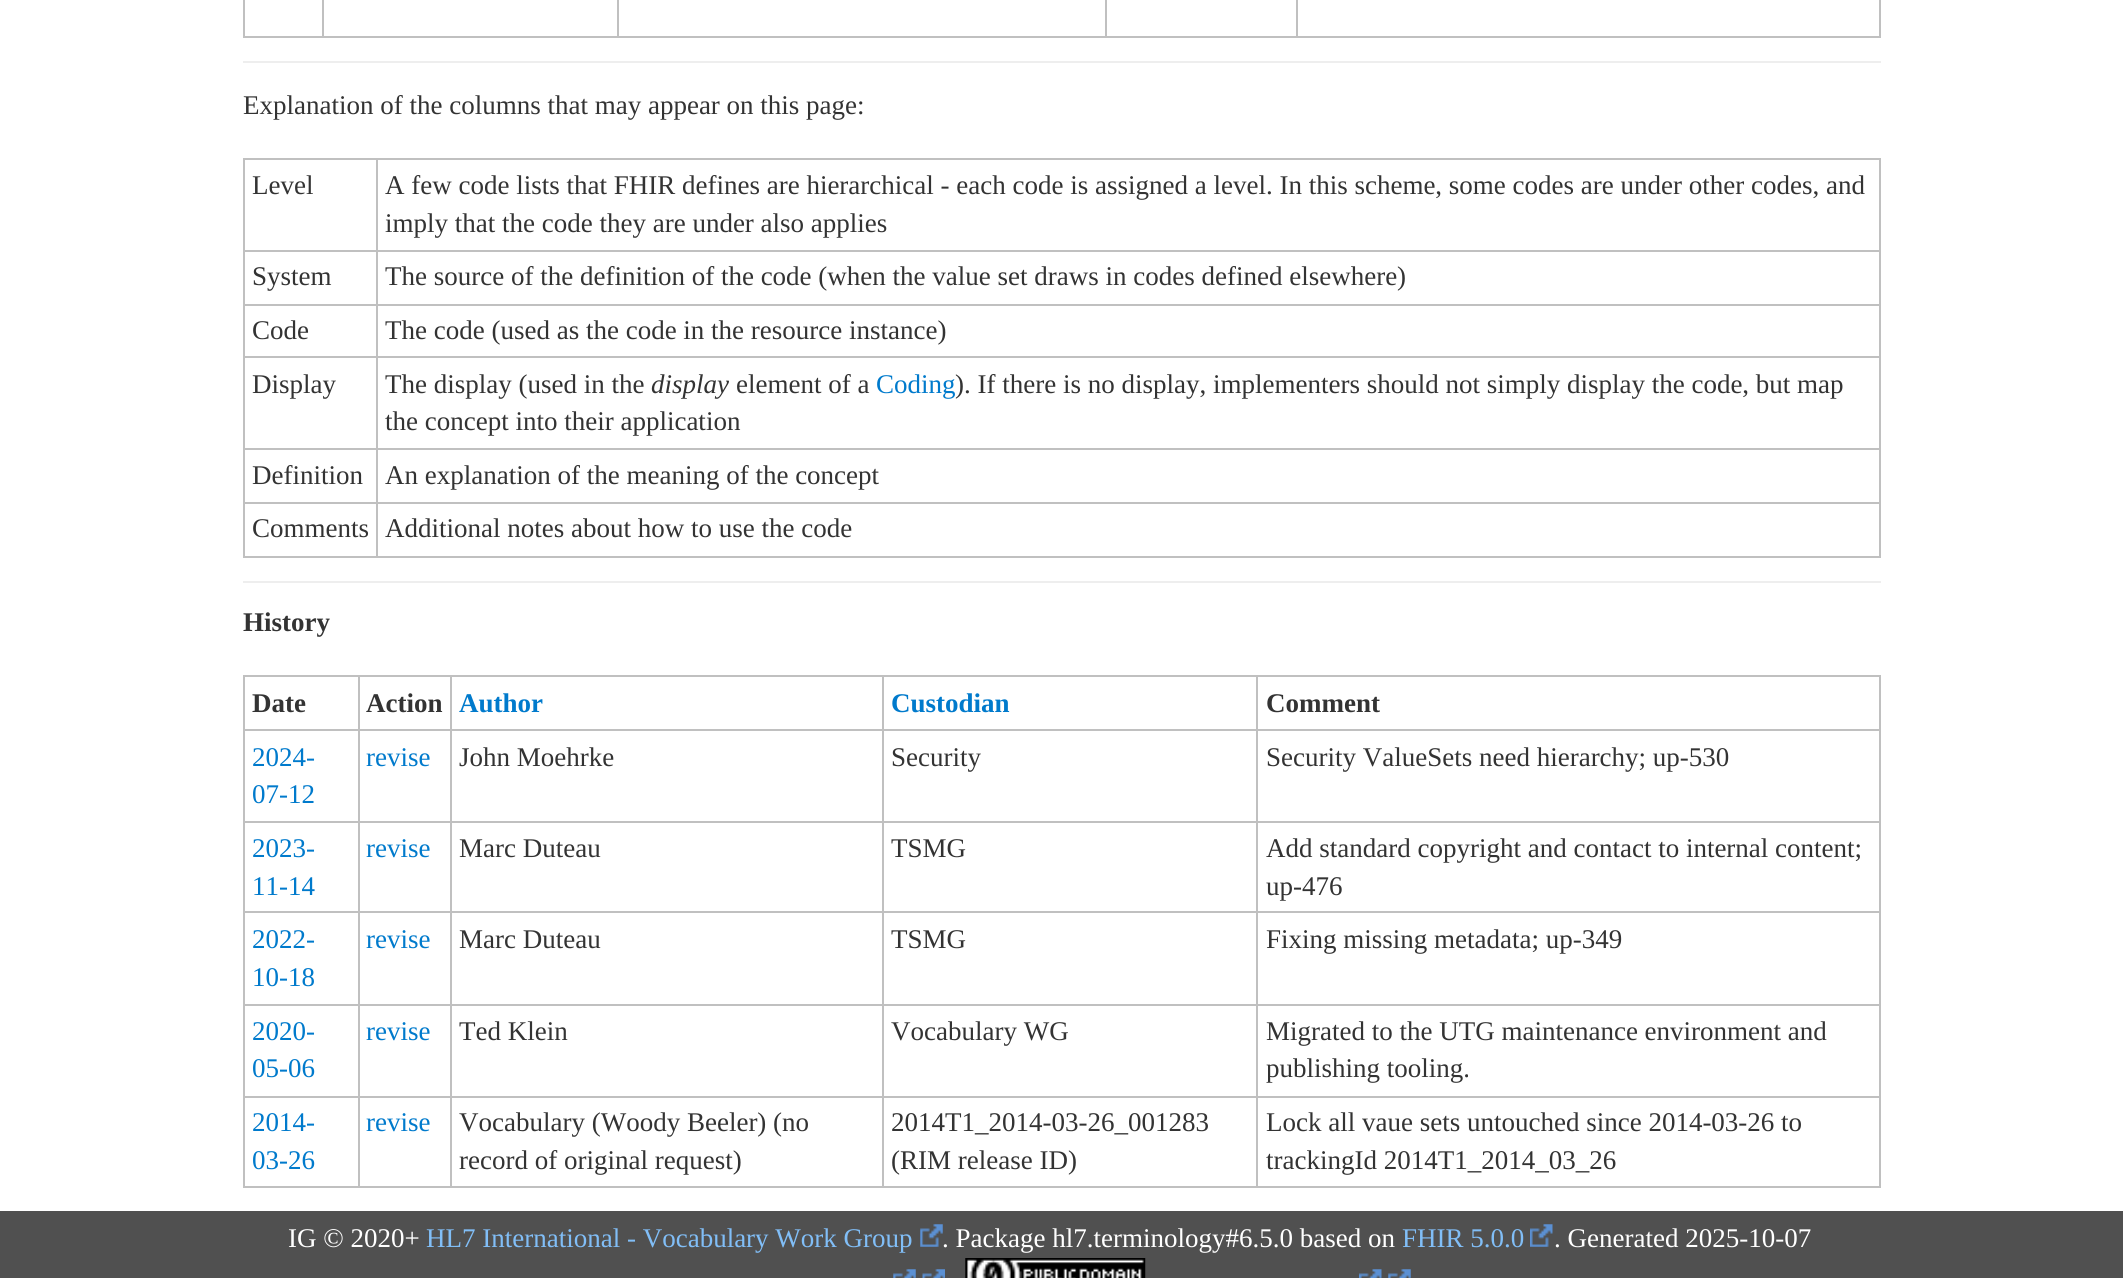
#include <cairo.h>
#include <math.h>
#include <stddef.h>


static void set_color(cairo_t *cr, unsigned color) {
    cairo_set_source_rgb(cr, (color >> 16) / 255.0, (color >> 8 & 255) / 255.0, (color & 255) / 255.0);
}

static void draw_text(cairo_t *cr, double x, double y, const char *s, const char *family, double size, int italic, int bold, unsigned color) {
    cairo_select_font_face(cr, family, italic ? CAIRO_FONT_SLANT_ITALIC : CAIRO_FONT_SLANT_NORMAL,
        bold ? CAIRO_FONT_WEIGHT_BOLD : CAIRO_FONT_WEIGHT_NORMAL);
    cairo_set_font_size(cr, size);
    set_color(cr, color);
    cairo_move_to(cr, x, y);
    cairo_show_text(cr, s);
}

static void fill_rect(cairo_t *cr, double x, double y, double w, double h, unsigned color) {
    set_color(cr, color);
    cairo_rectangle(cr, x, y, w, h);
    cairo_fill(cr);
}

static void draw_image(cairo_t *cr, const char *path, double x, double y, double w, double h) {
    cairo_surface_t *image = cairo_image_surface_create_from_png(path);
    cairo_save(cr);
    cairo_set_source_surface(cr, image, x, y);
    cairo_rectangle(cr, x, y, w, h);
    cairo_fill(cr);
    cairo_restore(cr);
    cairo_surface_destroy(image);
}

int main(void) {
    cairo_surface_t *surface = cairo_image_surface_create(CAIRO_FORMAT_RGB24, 2123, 1278);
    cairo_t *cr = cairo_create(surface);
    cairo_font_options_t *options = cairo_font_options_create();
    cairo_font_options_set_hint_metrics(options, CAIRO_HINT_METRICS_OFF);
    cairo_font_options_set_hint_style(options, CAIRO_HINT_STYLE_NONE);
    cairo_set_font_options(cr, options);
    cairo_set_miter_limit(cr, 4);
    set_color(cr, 0xFFFFFF);
    cairo_paint(cr);
    fill_rect(cr, 1879, 0, 2, 38, 0xC0C0C0);
    fill_rect(cr, 1296, 36, 585, 2, 0xC0C0C0);
    fill_rect(cr, 1296, 0, 2, 38, 0xC0C0C0);
    fill_rect(cr, 1105, 36, 193, 2, 0xC0C0C0);
    fill_rect(cr, 1105, 0, 2, 38, 0xC0C0C0);
    fill_rect(cr, 617, 36, 490, 2, 0xC0C0C0);
    fill_rect(cr, 617, 0, 2, 38, 0xC0C0C0);
    fill_rect(cr, 322, 36, 297, 2, 0xC0C0C0);
    fill_rect(cr, 322, 0, 2, 38, 0xC0C0C0);
    fill_rect(cr, 243, 36, 81, 2, 0xC0C0C0);
    fill_rect(cr, 243, 0, 2, 38, 0xC0C0C0);
    fill_rect(cr, 243, 61, 1638, 2, 0xEEEEEE);
    draw_text(cr, 243, 114, "Explanation of the columns that may appear on this page:", "Liberation Serif", 27, 0, 0, 0x333333);
    fill_rect(cr, 376, 158, 1505, 2, 0xC0C0C0);
    fill_rect(cr, 376, 250, 1505, 2, 0xC0C0C0);
    fill_rect(cr, 376, 304, 1505, 2, 0xC0C0C0);
    fill_rect(cr, 376, 356, 1505, 2, 0xC0C0C0);
    fill_rect(cr, 376, 448, 1505, 2, 0xC0C0C0);
    fill_rect(cr, 376, 502, 1505, 2, 0xC0C0C0);
    fill_rect(cr, 1879, 502, 2, 56, 0xC0C0C0);
    fill_rect(cr, 376, 556, 1505, 2, 0xC0C0C0);
    fill_rect(cr, 376, 502, 2, 56, 0xC0C0C0);
    fill_rect(cr, 243, 502, 135, 2, 0xC0C0C0);
    fill_rect(cr, 376, 448, 2, 56, 0xC0C0C0);
    fill_rect(cr, 243, 448, 135, 2, 0xC0C0C0);
    fill_rect(cr, 376, 356, 2, 94, 0xC0C0C0);
    fill_rect(cr, 243, 356, 135, 2, 0xC0C0C0);
    fill_rect(cr, 376, 304, 2, 54, 0xC0C0C0);
    fill_rect(cr, 243, 304, 135, 2, 0xC0C0C0);
    fill_rect(cr, 376, 250, 2, 56, 0xC0C0C0);
    fill_rect(cr, 243, 250, 135, 2, 0xC0C0C0);
    fill_rect(cr, 376, 158, 2, 94, 0xC0C0C0);
    fill_rect(cr, 243, 158, 135, 2, 0xC0C0C0);
    fill_rect(cr, 243, 556, 135, 2, 0xC0C0C0);
    fill_rect(cr, 243, 502, 2, 56, 0xC0C0C0);
    fill_rect(cr, 243, 448, 2, 56, 0xC0C0C0);
    fill_rect(cr, 243, 356, 2, 94, 0xC0C0C0);
    fill_rect(cr, 243, 304, 2, 54, 0xC0C0C0);
    fill_rect(cr, 243, 250, 2, 56, 0xC0C0C0);
    fill_rect(cr, 243, 158, 2, 94, 0xC0C0C0);
    draw_text(cr, 252, 194, "Level", "Liberation Serif", 27, 0, 0, 0x333333);
    fill_rect(cr, 1879, 448, 2, 56, 0xC0C0C0);
    fill_rect(cr, 1879, 356, 2, 94, 0xC0C0C0);
    fill_rect(cr, 1879, 304, 2, 54, 0xC0C0C0);
    fill_rect(cr, 1879, 250, 2, 56, 0xC0C0C0);
    fill_rect(cr, 1879, 158, 2, 94, 0xC0C0C0);
    draw_text(cr, 385, 194, "A few code lists that FHIR defines are hierarchical - each code is assigned a level. In this scheme, some codes are under other codes, and", "Liberation Serif", 27, 0, 0, 0x333333);
    draw_text(cr, 385, 232, "imply that the code they are under also applies", "Liberation Serif", 27, 0, 0, 0x333333);
    draw_text(cr, 252, 285, "System", "Liberation Serif", 27, 0, 0, 0x333333);
    draw_text(cr, 385, 285, "The source of the definition of the code (when the value set draws in codes defined elsewhere)", "Liberation Serif", 27, 0, 0, 0x333333);
    draw_text(cr, 252, 339, "Code", "Liberation Serif", 27, 0, 0, 0x333333);
    draw_text(cr, 385, 339, "The code (used as the code in the resource instance)", "Liberation Serif", 27, 0, 0, 0x333333);
    draw_text(cr, 252, 393, "Display", "Liberation Serif", 27, 0, 0, 0x333333);
    draw_text(cr, 385, 393, "The display (used in the", "Liberation Serif", 27, 0, 0, 0x333333);
    draw_text(cr, 651, 393, "display", "Liberation Serif", 27, 1, 0, 0x333333);
    draw_text(cr, 736, 393, "element of a", "Liberation Serif", 27, 0, 0, 0x333333);
    draw_text(cr, 876, 393, "Coding", "Liberation Serif", 27, 0, 0, 0x007ACC);
    draw_text(cr, 955, 393, "). If there is no display, implementers should not simply display the code, but map", "Liberation Serif", 27, 0, 0, 0x333333);
    draw_text(cr, 385, 430, "the concept into their application", "Liberation Serif", 27, 0, 0, 0x333333);
    draw_text(cr, 252, 484, "Definition", "Liberation Serif", 27, 0, 0, 0x333333);
    draw_text(cr, 385, 484, "An explanation of the meaning of the concept", "Liberation Serif", 27, 0, 0, 0x333333);
    draw_text(cr, 252, 537, "Comments", "Liberation Serif", 27, 0, 0, 0x333333);
    draw_text(cr, 385, 537, "Additional notes about how to use the code", "Liberation Serif", 27, 0, 0, 0x333333);
    fill_rect(cr, 243, 581, 1638, 2, 0xEEEEEE);
    draw_text(cr, 243, 631, "History", "Liberation Serif", 27, 0, 1, 0x333333);
    fill_rect(cr, 1256, 675, 625, 2, 0xC0C0C0);
    fill_rect(cr, 1256, 729, 625, 2, 0xC0C0C0);
    fill_rect(cr, 1256, 821, 625, 2, 0xC0C0C0);
    fill_rect(cr, 1256, 911, 625, 2, 0xC0C0C0);
    fill_rect(cr, 1256, 1004, 625, 2, 0xC0C0C0);
    fill_rect(cr, 1256, 1096, 625, 2, 0xC0C0C0);
    fill_rect(cr, 1879, 1096, 2, 92, 0xC0C0C0);
    fill_rect(cr, 1256, 1186, 625, 2, 0xC0C0C0);
    fill_rect(cr, 1256, 1096, 2, 92, 0xC0C0C0);
    fill_rect(cr, 882, 1096, 376, 2, 0xC0C0C0);
    fill_rect(cr, 1256, 1004, 2, 94, 0xC0C0C0);
    fill_rect(cr, 882, 1004, 376, 2, 0xC0C0C0);
    fill_rect(cr, 1256, 911, 2, 95, 0xC0C0C0);
    fill_rect(cr, 882, 911, 376, 2, 0xC0C0C0);
    fill_rect(cr, 1256, 821, 2, 93, 0xC0C0C0);
    fill_rect(cr, 882, 821, 376, 2, 0xC0C0C0);
    fill_rect(cr, 1256, 729, 2, 95, 0xC0C0C0);
    fill_rect(cr, 882, 729, 376, 2, 0xC0C0C0);
    fill_rect(cr, 1256, 675, 2, 56, 0xC0C0C0);
    fill_rect(cr, 882, 675, 376, 2, 0xC0C0C0);
    fill_rect(cr, 882, 1186, 376, 2, 0xC0C0C0);
    fill_rect(cr, 882, 1096, 2, 92, 0xC0C0C0);
    fill_rect(cr, 450, 1096, 434, 2, 0xC0C0C0);
    fill_rect(cr, 882, 1004, 2, 94, 0xC0C0C0);
    fill_rect(cr, 450, 1004, 434, 2, 0xC0C0C0);
    fill_rect(cr, 882, 911, 2, 95, 0xC0C0C0);
    fill_rect(cr, 450, 911, 434, 2, 0xC0C0C0);
    fill_rect(cr, 882, 821, 2, 93, 0xC0C0C0);
    fill_rect(cr, 450, 821, 434, 2, 0xC0C0C0);
    fill_rect(cr, 882, 729, 2, 95, 0xC0C0C0);
    fill_rect(cr, 450, 729, 434, 2, 0xC0C0C0);
    fill_rect(cr, 882, 675, 2, 56, 0xC0C0C0);
    fill_rect(cr, 450, 675, 434, 2, 0xC0C0C0);
    fill_rect(cr, 450, 1186, 434, 2, 0xC0C0C0);
    fill_rect(cr, 450, 1096, 2, 92, 0xC0C0C0);
    fill_rect(cr, 358, 1096, 94, 2, 0xC0C0C0);
    fill_rect(cr, 450, 1004, 2, 94, 0xC0C0C0);
    fill_rect(cr, 358, 1004, 94, 2, 0xC0C0C0);
    fill_rect(cr, 450, 911, 2, 95, 0xC0C0C0);
    fill_rect(cr, 358, 911, 94, 2, 0xC0C0C0);
    fill_rect(cr, 450, 821, 2, 93, 0xC0C0C0);
    fill_rect(cr, 358, 821, 94, 2, 0xC0C0C0);
    fill_rect(cr, 450, 729, 2, 95, 0xC0C0C0);
    fill_rect(cr, 358, 729, 94, 2, 0xC0C0C0);
    fill_rect(cr, 450, 675, 2, 56, 0xC0C0C0);
    fill_rect(cr, 358, 675, 94, 2, 0xC0C0C0);
    fill_rect(cr, 358, 1186, 94, 2, 0xC0C0C0);
    fill_rect(cr, 358, 1096, 2, 92, 0xC0C0C0);
    fill_rect(cr, 243, 1096, 117, 2, 0xC0C0C0);
    fill_rect(cr, 358, 1004, 2, 94, 0xC0C0C0);
    fill_rect(cr, 243, 1004, 117, 2, 0xC0C0C0);
    fill_rect(cr, 358, 911, 2, 95, 0xC0C0C0);
    fill_rect(cr, 243, 911, 117, 2, 0xC0C0C0);
    fill_rect(cr, 358, 821, 2, 93, 0xC0C0C0);
    fill_rect(cr, 243, 821, 117, 2, 0xC0C0C0);
    fill_rect(cr, 358, 729, 2, 95, 0xC0C0C0);
    fill_rect(cr, 243, 729, 117, 2, 0xC0C0C0);
    fill_rect(cr, 358, 675, 2, 56, 0xC0C0C0);
    fill_rect(cr, 243, 675, 117, 2, 0xC0C0C0);
    fill_rect(cr, 243, 1186, 117, 2, 0xC0C0C0);
    fill_rect(cr, 243, 1096, 2, 92, 0xC0C0C0);
    fill_rect(cr, 243, 1004, 2, 94, 0xC0C0C0);
    fill_rect(cr, 243, 911, 2, 95, 0xC0C0C0);
    fill_rect(cr, 243, 821, 2, 93, 0xC0C0C0);
    fill_rect(cr, 243, 729, 2, 95, 0xC0C0C0);
    fill_rect(cr, 243, 675, 2, 56, 0xC0C0C0);
    draw_text(cr, 252, 712, "Date", "Liberation Serif", 27, 0, 1, 0x333333);
    draw_text(cr, 366, 712, "Action", "Liberation Serif", 27, 0, 1, 0x333333);
    draw_text(cr, 459, 712, "Author", "Liberation Serif", 27, 0, 1, 0x007ACC);
    draw_text(cr, 891, 712, "Custodian", "Liberation Serif", 27, 0, 1, 0x007ACC);
    fill_rect(cr, 1879, 1004, 2, 94, 0xC0C0C0);
    fill_rect(cr, 1879, 911, 2, 95, 0xC0C0C0);
    fill_rect(cr, 1879, 821, 2, 93, 0xC0C0C0);
    fill_rect(cr, 1879, 729, 2, 95, 0xC0C0C0);
    fill_rect(cr, 1879, 675, 2, 56, 0xC0C0C0);
    draw_text(cr, 1266, 712, "Comment", "Liberation Serif", 27, 0, 1, 0x333333);
    draw_text(cr, 252, 766, "2024-", "Liberation Serif", 27, 0, 0, 0x007ACC);
    draw_text(cr, 252, 803, "07-12", "Liberation Serif", 27, 0, 0, 0x007ACC);
    draw_text(cr, 366, 766, "revise", "Liberation Serif", 27, 0, 0, 0x007ACC);
    draw_text(cr, 459, 766, "John Moehrke", "Liberation Serif", 27, 0, 0, 0x333333);
    draw_text(cr, 891, 766, "Security", "Liberation Serif", 27, 0, 0, 0x333333);
    draw_text(cr, 1266, 766, "Security ValueSets need hierarchy; up-530", "Liberation Serif", 27, 0, 0, 0x333333);
    draw_text(cr, 252, 857, "2023-", "Liberation Serif", 27, 0, 0, 0x007ACC);
    draw_text(cr, 252, 895, "11-14", "Liberation Serif", 27, 0, 0, 0x007ACC);
    draw_text(cr, 366, 857, "revise", "Liberation Serif", 27, 0, 0, 0x007ACC);
    draw_text(cr, 459, 857, "Marc Duteau", "Liberation Serif", 27, 0, 0, 0x333333);
    draw_text(cr, 891, 857, "TSMG", "Liberation Serif", 27, 0, 0, 0x333333);
    draw_text(cr, 1266, 857, "Add standard copyright and contact to internal content;", "Liberation Serif", 27, 0, 0, 0x333333);
    draw_text(cr, 1266, 895, "up-476", "Liberation Serif", 27, 0, 0, 0x333333);
    draw_text(cr, 252, 948, "2022-", "Liberation Serif", 27, 0, 0, 0x007ACC);
    draw_text(cr, 252, 986, "10-18", "Liberation Serif", 27, 0, 0, 0x007ACC);
    draw_text(cr, 366, 948, "revise", "Liberation Serif", 27, 0, 0, 0x007ACC);
    draw_text(cr, 459, 948, "Marc Duteau", "Liberation Serif", 27, 0, 0, 0x333333);
    draw_text(cr, 891, 948, "TSMG", "Liberation Serif", 27, 0, 0, 0x333333);
    draw_text(cr, 1266, 948, "Fixing missing metadata; up-349", "Liberation Serif", 27, 0, 0, 0x333333);
    draw_text(cr, 252, 1040, "2020-", "Liberation Serif", 27, 0, 0, 0x007ACC);
    draw_text(cr, 252, 1077, "05-06", "Liberation Serif", 27, 0, 0, 0x007ACC);
    draw_text(cr, 366, 1040, "revise", "Liberation Serif", 27, 0, 0, 0x007ACC);
    draw_text(cr, 459, 1040, "Ted Klein", "Liberation Serif", 27, 0, 0, 0x333333);
    draw_text(cr, 891, 1040, "Vocabulary WG", "Liberation Serif", 27, 0, 0, 0x333333);
    draw_text(cr, 1266, 1040, "Migrated to the UTG maintenance environment and", "Liberation Serif", 27, 0, 0, 0x333333);
    draw_text(cr, 1266, 1077, "publishing tooling.", "Liberation Serif", 27, 0, 0, 0x333333);
    draw_text(cr, 252, 1131, "2014-", "Liberation Serif", 27, 0, 0, 0x007ACC);
    draw_text(cr, 252, 1169, "03-26", "Liberation Serif", 27, 0, 0, 0x007ACC);
    draw_text(cr, 366, 1131, "revise", "Liberation Serif", 27, 0, 0, 0x007ACC);
    draw_text(cr, 459, 1131, "Vocabulary (Woody Beeler) (no", "Liberation Serif", 27, 0, 0, 0x333333);
    draw_text(cr, 459, 1169, "record of original request)", "Liberation Serif", 27, 0, 0, 0x333333);
    draw_text(cr, 891, 1131, "2014T1_2014-03-26_001283", "Liberation Serif", 27, 0, 0, 0x333333);
    draw_text(cr, 891, 1169, "(RIM release ID)", "Liberation Serif", 27, 0, 0, 0x333333);
    draw_text(cr, 1266, 1131, "Lock all vaue sets untouched since 2014-03-26 to", "Liberation Serif", 27, 0, 0, 0x333333);
    draw_text(cr, 1266, 1169, "trackingId 2014T1_2014_03_26", "Liberation Serif", 27, 0, 0, 0x333333);
    fill_rect(cr, 0, 1211, 2123, 67, 0x505050);
    draw_text(cr, 288, 1247, "IG © 2020+", "Liberation Serif", 27, 0, 0, 0xFFFFFF);
    draw_text(cr, 426, 1247, "HL7 International - Vocabulary Work Group", "Liberation Serif", 27, 0, 0, 0x81BEF7);
    draw_image(cr, "assets/img1.png", 920, 1224, 23, 23);
    draw_text(cr, 942, 1247, ". Package hl7.terminology#6.5.0 based on", "Liberation Serif", 27, 0, 0, 0xFFFFFF);
    draw_text(cr, 1402, 1247, "FHIR 5.0.0", "Liberation Serif", 27, 0, 0, 0x81BEF7);
    draw_image(cr, "assets/img2.png", 1530, 1224, 23, 23);
    draw_text(cr, 1554, 1247, ". Generated 2025-10-07", "Liberation Serif", 27, 0, 0, 0xFFFFFF);
    draw_image(cr, "assets/img3.png", 893, 1269, 23, 9);
    draw_image(cr, "assets/img4.png", 922, 1269, 23, 9);
    draw_image(cr, "assets/img5.png", 965, 1258, 181, 20);
    draw_image(cr, "assets/img6.png", 1359, 1269, 23, 9);
    draw_image(cr, "assets/img7.png", 1388, 1269, 23, 9);
    cairo_surface_write_to_png(surface, "output.png");
    cairo_font_options_destroy(options);
    cairo_destroy(cr);
    cairo_surface_destroy(surface);
    return 0;
}
